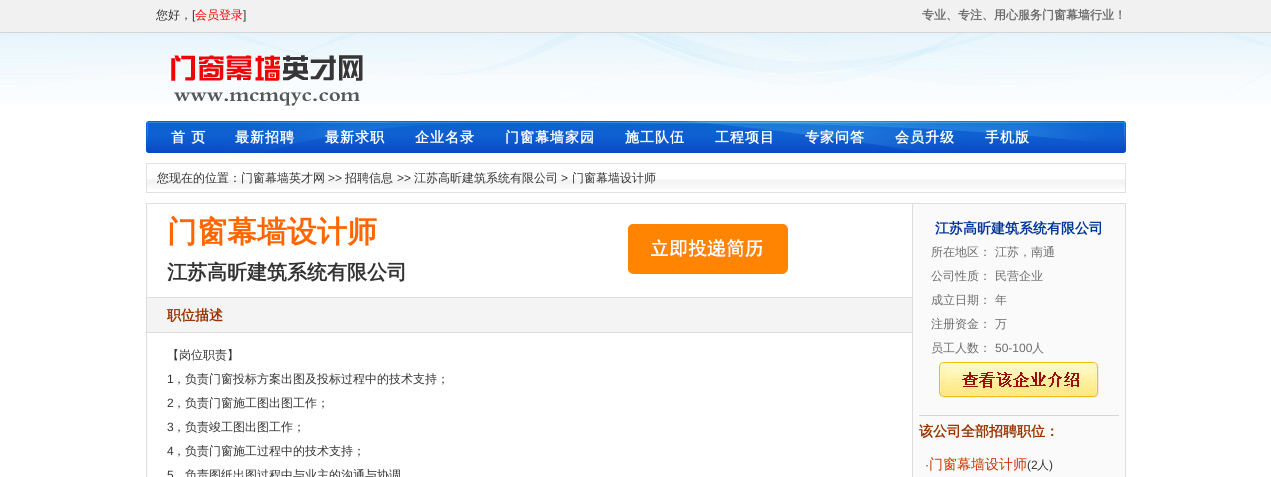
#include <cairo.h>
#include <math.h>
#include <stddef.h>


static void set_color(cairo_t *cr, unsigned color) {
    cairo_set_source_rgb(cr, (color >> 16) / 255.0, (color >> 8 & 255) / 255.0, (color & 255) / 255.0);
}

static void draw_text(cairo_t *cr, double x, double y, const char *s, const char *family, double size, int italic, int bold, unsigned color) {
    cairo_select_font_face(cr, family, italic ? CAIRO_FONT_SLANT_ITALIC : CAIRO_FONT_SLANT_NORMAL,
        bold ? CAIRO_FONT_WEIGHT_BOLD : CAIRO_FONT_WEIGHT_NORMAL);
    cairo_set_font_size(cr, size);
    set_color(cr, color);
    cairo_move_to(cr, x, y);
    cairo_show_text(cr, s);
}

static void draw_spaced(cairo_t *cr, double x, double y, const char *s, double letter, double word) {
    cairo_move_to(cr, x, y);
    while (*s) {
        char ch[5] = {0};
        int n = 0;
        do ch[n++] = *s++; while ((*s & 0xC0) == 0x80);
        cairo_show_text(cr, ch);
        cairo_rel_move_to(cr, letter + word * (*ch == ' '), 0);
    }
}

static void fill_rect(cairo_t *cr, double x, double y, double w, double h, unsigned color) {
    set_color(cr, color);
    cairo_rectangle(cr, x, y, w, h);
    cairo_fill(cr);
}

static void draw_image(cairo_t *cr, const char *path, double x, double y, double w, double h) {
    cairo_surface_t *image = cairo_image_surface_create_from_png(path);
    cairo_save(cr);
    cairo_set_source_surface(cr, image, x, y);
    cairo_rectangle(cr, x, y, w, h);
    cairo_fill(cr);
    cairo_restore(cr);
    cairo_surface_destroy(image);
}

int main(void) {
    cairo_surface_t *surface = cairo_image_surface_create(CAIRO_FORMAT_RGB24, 1271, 477);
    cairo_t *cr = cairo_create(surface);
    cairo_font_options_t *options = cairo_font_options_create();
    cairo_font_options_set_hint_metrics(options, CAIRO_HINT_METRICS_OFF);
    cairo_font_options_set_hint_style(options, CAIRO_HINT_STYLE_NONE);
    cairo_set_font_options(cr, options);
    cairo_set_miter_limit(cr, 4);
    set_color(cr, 0xFFFFFF);
    cairo_paint(cr);
    draw_image(cr, "assets/img1.png", 0, 33, 1271, 71);
    fill_rect(cr, 0, 0, 1271, 32, 0xF1F1F1);
    fill_rect(cr, 0, 32, 1271, 1, 0xD5D5D5);
    draw_text(cr, 156, 19, "您好，", "WenQuanYi Zen Hei Medium", 12, 0, 0, 0x333333);
    draw_text(cr, 192, 19, "[", "Liberation Sans", 12, 0, 0, 0x333333);
    draw_text(cr, 195, 19, "会员登录", "WenQuanYi Zen Hei Medium", 12, 0, 0, 0xFF0000);
    draw_text(cr, 243, 19, "]", "Liberation Sans", 12, 0, 0, 0x333333);
    draw_text(cr, 922, 19, "专业、专注、用心服务门窗幕墙行业！", "WenQuanYi Zen Hei", 12, 0, 1, 0x6C6C6C);
    draw_image(cr, "assets/img2.png", 171, 55, 192, 51);
    draw_image(cr, "assets/img3.png", 146, 121, 980, 32);
    cairo_set_font_size(cr, 14);
    set_color(cr, 0xFFFFFF);
    draw_spaced(cr, 171, 142, "首 页", 1, 0);
    draw_spaced(cr, 235, 142, "最新招聘", 1, 0);
    draw_spaced(cr, 325, 142, "最新求职", 1, 0);
    draw_spaced(cr, 415, 142, "企业名录", 1, 0);
    draw_spaced(cr, 505, 142, "门窗幕墙家园", 1, 0);
    draw_spaced(cr, 625, 142, "施工队伍", 1, 0);
    draw_spaced(cr, 715, 142, "工程项目", 1, 0);
    draw_spaced(cr, 805, 142, "专家问答", 1, 0);
    draw_spaced(cr, 895, 142, "会员升级", 1, 0);
    draw_spaced(cr, 985, 142, "手机版", 1, 0);
    draw_image(cr, "assets/img4.png", 147, 179, 978, 10);
    cairo_rectangle(cr, 146.5, 163.5, 979, 29);
    set_color(cr, 0xE1E1E1);
    cairo_set_line_width(cr, 1);
    cairo_stroke(cr);
    draw_text(cr, 157, 182, "您现在的位置：门窗幕墙英才网", "WenQuanYi Zen Hei Medium", 12, 0, 0, 0x333333);
    draw_text(cr, 328, 182, ">>", "Liberation Sans", 12, 0, 0, 0x333333);
    draw_text(cr, 345, 182, "招聘信息", "WenQuanYi Zen Hei Medium", 12, 0, 0, 0x333333);
    draw_text(cr, 397, 182, ">>", "Liberation Sans", 12, 0, 0, 0x333333);
    draw_text(cr, 414, 182, "江苏高昕建筑系统有限公司", "WenQuanYi Zen Hei Medium", 12, 0, 0, 0x333333);
    draw_text(cr, 561, 182, ">", "Liberation Sans", 12, 0, 0, 0x333333);
    draw_text(cr, 572, 182, "门窗幕墙设计师", "WenQuanYi Zen Hei Medium", 12, 0, 0, 0x333333);
    cairo_rectangle(cr, 146.5, 203.5, 979, 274);
    set_color(cr, 0xDDDDDD);
    cairo_stroke(cr);
    draw_text(cr, 167, 242, "门窗幕墙设计师", "WenQuanYi Zen Hei", 30, 0, 1, 0xFF6600);
    draw_image(cr, "assets/img5.png", 628, 224, 160, 50);
    draw_text(cr, 167, 279, "江苏高昕建筑系统有限公司", "WenQuanYi Zen Hei", 20, 0, 1, 0x333333);
    fill_rect(cr, 147, 298, 765, 34, 0xF4F4F4);
    fill_rect(cr, 147, 297, 765, 1, 0xDDDDDD);
    fill_rect(cr, 147, 332, 765, 1, 0xDDDDDD);
    draw_text(cr, 167, 320, "职位描述", "WenQuanYi Zen Hei", 14, 0, 1, 0x993300);
    draw_text(cr, 167, 359, "【岗位职责】", "WenQuanYi Zen Hei Medium", 12, 0, 0, 0x333333);
    draw_text(cr, 167, 383, "1", "Liberation Sans", 12, 0, 0, 0x333333);
    draw_text(cr, 173, 383, "，负责门窗投标方案出图及投标过程中的技术支持；", "WenQuanYi Zen Hei Medium", 12, 0, 0, 0x333333);
    draw_text(cr, 167, 407, "2", "Liberation Sans", 12, 0, 0, 0x333333);
    draw_text(cr, 173, 407, "，负责门窗施工图出图工作；", "WenQuanYi Zen Hei Medium", 12, 0, 0, 0x333333);
    draw_text(cr, 167, 431, "3", "Liberation Sans", 12, 0, 0, 0x333333);
    draw_text(cr, 173, 431, "，负责竣工图出图工作；", "WenQuanYi Zen Hei Medium", 12, 0, 0, 0x333333);
    draw_text(cr, 167, 455, "4", "Liberation Sans", 12, 0, 0, 0x333333);
    draw_text(cr, 173, 455, "，负责门窗施工过程中的技术支持；", "WenQuanYi Zen Hei Medium", 12, 0, 0, 0x333333);
    draw_text(cr, 167, 479, "5", "Liberation Sans", 12, 0, 0, 0x333333);
    draw_text(cr, 185, 479, "负责图纸出图过程中与业主的沟通与协调", "WenQuanYi Zen Hei Medium", 12, 0, 0, 0x333333);
    fill_rect(cr, 913, 204, 212, 273, 0xFAFAFA);
    fill_rect(cr, 912, 204, 1, 273, 0xDDDDDD);
    draw_text(cr, 935, 233, "江苏高昕建筑系统有限公司", "WenQuanYi Zen Hei", 14, 0, 1, 0x003399);
    draw_text(cr, 931, 256, "所在地区：", "WenQuanYi Zen Hei Medium", 12, 0, 0, 0x6C6C6C);
    draw_text(cr, 995, 256, "江苏，南通", "WenQuanYi Zen Hei Medium", 12, 0, 0, 0x6C6C6C);
    draw_text(cr, 931, 280, "公司性质：", "WenQuanYi Zen Hei Medium", 12, 0, 0, 0x6C6C6C);
    draw_text(cr, 995, 280, "民营企业", "WenQuanYi Zen Hei Medium", 12, 0, 0, 0x6C6C6C);
    draw_text(cr, 931, 304, "成立日期：", "WenQuanYi Zen Hei Medium", 12, 0, 0, 0x6C6C6C);
    draw_text(cr, 995, 304, "年", "WenQuanYi Zen Hei Medium", 12, 0, 0, 0x6C6C6C);
    draw_text(cr, 931, 328, "注册资金：", "WenQuanYi Zen Hei Medium", 12, 0, 0, 0x6C6C6C);
    draw_text(cr, 995, 328, "万", "WenQuanYi Zen Hei Medium", 12, 0, 0, 0x6C6C6C);
    draw_text(cr, 931, 352, "员工人数：", "WenQuanYi Zen Hei Medium", 12, 0, 0, 0x6C6C6C);
    draw_text(cr, 995, 352, "50-100", "Liberation Sans", 12, 0, 0, 0x6C6C6C);
    draw_text(cr, 1032, 352, "人", "WenQuanYi Zen Hei Medium", 12, 0, 0, 0x6C6C6C);
    draw_image(cr, "assets/img6.png", 939, 362, 160, 36);
    fill_rect(cr, 919, 415, 200, 1, 0xD5D5D5);
    draw_text(cr, 919, 436, "该公司全部招聘职位：", "WenQuanYi Zen Hei", 14, 0, 1, 0x993300);
    draw_text(cr, 925, 469, "·", "Liberation Sans", 12, 0, 0, 0x333333);
    draw_text(cr, 929, 469, "门窗幕墙设计师", "WenQuanYi Zen Hei Medium", 14, 0, 0, 0xCC3300);
    draw_text(cr, 1027, 469, "(2", "Liberation Sans", 12, 0, 0, 0x333333);
    draw_text(cr, 1037, 469, "人", "WenQuanYi Zen Hei Medium", 12, 0, 0, 0x333333);
    draw_text(cr, 1049, 469, ")", "Liberation Sans", 12, 0, 0, 0x333333);
    cairo_surface_write_to_png(surface, "output.png");
    cairo_font_options_destroy(options);
    cairo_destroy(cr);
    cairo_surface_destroy(surface);
    return 0;
}
